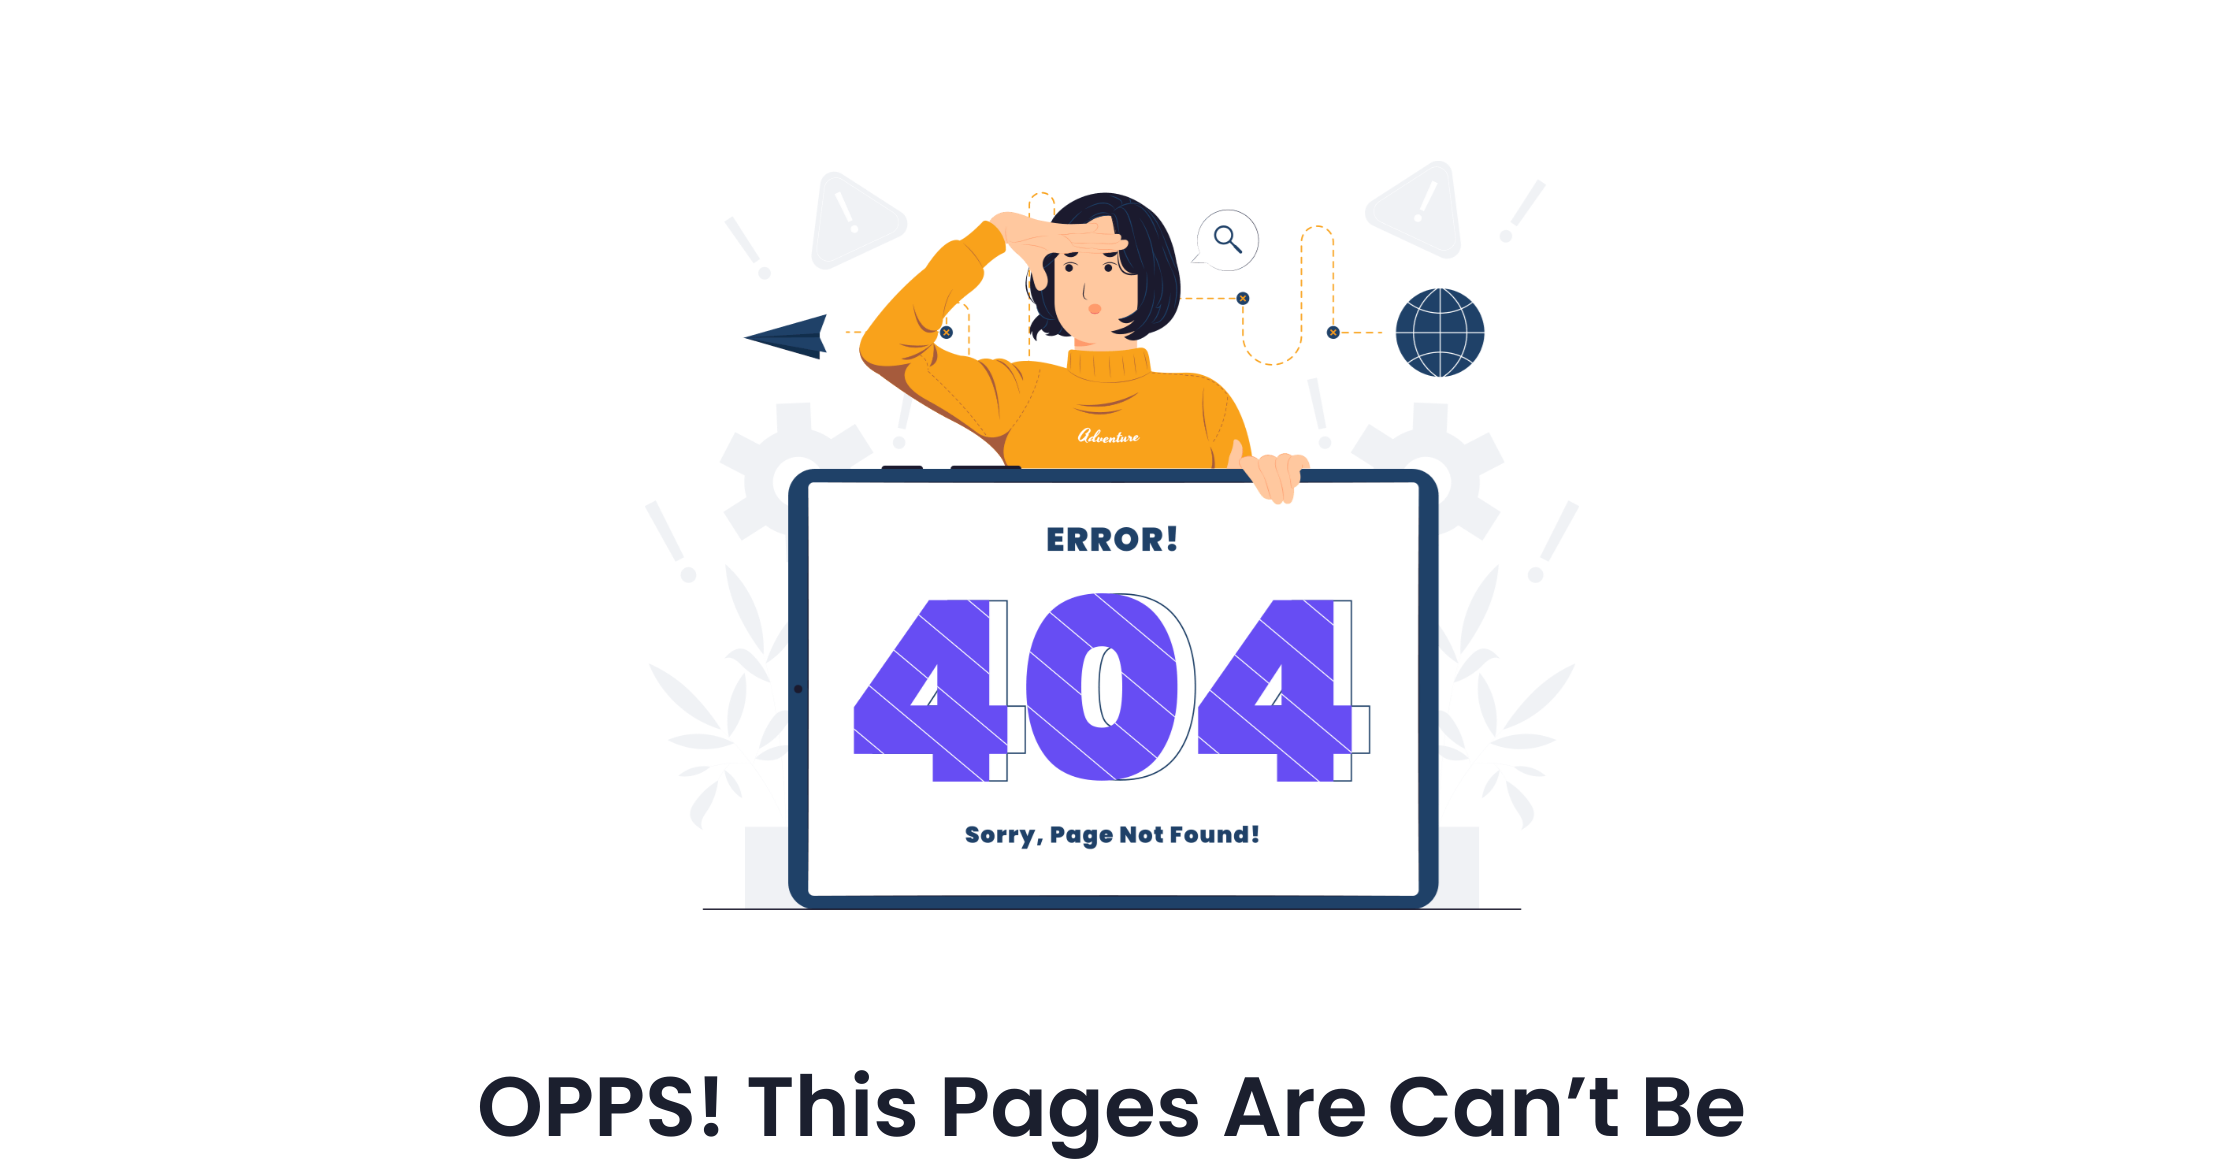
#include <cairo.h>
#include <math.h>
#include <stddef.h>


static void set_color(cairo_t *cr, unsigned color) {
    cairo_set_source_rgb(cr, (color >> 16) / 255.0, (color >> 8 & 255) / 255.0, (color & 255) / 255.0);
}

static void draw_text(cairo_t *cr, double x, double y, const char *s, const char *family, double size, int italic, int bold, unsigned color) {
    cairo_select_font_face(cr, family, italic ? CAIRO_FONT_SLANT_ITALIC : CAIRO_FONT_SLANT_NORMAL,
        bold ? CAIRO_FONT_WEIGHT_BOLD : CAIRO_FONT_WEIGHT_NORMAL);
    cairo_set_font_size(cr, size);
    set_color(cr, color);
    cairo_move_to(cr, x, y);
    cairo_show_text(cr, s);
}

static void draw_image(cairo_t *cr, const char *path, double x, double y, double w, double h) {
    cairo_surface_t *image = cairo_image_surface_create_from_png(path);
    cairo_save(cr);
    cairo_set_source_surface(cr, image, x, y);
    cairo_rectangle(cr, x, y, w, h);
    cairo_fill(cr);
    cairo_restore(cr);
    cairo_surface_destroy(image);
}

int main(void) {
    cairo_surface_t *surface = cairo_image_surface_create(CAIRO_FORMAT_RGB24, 2223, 1160);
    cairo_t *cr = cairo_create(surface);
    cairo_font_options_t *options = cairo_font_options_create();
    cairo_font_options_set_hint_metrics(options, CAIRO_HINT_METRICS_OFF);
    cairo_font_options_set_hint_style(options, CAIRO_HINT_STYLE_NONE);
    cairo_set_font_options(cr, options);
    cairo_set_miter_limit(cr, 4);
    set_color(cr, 0xFFFFFF);
    cairo_paint(cr);
    draw_image(cr, "assets/img1.png", 645, 161, 934, 749);
    draw_text(cr, 477, 1136, "OPPS! This Pages Are Can’t Be", "Poppins SemiBold", 84, 0, 0, 0x1B1F2E);
    cairo_surface_write_to_png(surface, "output.png");
    cairo_font_options_destroy(options);
    cairo_destroy(cr);
    cairo_surface_destroy(surface);
    return 0;
}
